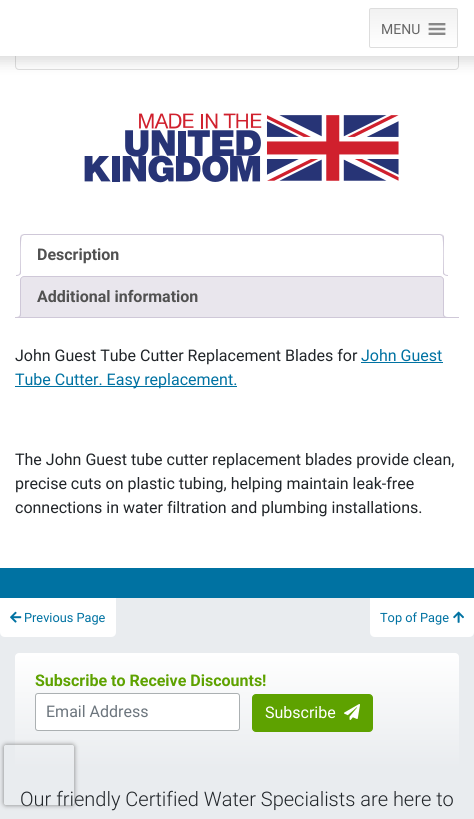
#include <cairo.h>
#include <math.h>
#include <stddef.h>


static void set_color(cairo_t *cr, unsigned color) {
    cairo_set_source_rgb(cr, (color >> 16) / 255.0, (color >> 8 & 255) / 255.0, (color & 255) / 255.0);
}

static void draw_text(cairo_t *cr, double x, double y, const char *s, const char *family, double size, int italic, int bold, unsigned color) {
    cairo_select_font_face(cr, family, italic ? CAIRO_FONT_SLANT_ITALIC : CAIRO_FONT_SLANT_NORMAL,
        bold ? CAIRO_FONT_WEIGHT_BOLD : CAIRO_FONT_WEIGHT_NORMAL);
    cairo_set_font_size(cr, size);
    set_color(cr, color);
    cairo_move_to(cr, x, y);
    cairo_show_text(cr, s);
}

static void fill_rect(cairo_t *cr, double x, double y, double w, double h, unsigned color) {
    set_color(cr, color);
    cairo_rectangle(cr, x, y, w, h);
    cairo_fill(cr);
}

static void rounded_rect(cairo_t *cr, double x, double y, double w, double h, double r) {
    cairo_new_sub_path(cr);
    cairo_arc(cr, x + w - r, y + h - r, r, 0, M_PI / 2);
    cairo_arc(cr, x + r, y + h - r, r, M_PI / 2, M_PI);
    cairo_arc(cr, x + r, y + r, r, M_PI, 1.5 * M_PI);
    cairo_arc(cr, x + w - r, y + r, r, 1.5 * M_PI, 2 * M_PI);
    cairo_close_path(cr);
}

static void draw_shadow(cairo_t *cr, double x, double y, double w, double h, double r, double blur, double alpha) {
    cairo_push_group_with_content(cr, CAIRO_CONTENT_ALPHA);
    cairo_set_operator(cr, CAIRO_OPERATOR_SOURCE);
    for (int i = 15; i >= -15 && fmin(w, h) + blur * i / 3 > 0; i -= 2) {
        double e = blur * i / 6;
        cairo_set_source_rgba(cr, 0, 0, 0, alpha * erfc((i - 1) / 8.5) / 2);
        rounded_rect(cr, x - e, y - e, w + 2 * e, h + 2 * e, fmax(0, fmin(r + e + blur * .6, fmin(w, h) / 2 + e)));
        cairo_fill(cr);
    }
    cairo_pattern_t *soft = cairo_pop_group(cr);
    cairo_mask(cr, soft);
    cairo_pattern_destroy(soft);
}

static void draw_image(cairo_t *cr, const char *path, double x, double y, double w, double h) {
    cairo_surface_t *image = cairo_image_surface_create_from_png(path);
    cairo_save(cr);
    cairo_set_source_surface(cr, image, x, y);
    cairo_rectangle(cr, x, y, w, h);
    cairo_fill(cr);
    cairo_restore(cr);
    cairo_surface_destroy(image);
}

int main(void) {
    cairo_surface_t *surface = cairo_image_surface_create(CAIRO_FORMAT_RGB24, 474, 819);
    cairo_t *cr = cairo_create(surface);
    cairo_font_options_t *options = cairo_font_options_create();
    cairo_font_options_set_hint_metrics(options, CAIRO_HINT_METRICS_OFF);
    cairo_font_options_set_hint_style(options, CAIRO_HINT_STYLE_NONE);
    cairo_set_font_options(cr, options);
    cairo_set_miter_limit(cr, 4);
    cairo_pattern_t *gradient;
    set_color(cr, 0x0072A2);
    cairo_paint(cr);
    fill_rect(cr, 0, 56, 474, 512, 0xFFFFFF);
    cairo_new_path(cr);
    cairo_move_to(cr, 15.5, -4.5);
    cairo_line_to(cr, 458.5, -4.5);
    cairo_line_to(cr, 458.5, 66);
    cairo_curve_to(cr, 458.5, 68, 457, 69.5, 455, 69.5);
    cairo_line_to(cr, 19, 69.5);
    cairo_curve_to(cr, 17, 69.5, 15.5, 68, 15.5, 66);
    cairo_close_path(cr);
    set_color(cr, 0xDFDFDF);
    cairo_set_line_width(cr, 1);
    cairo_stroke(cr);
    set_color(cr, 0x000000);
    draw_shadow(cr, -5, -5, 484, 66, 0, 7.5, 0.15);
    fill_rect(cr, 0, 0, 474, 56, 0xFFFFFF);
    cairo_save(cr);
    rounded_rect(cr, 369, 8, 89, 40, 2);
    cairo_clip(cr);
    gradient = cairo_pattern_create_linear(414, 9, 414, 47);
    cairo_pattern_add_color_stop_rgba(gradient, 0, 0.945, 0.945, 0.945, 1);
    cairo_pattern_add_color_stop_rgba(gradient, 1, 1, 1, 1, 1);
    cairo_set_source(cr, gradient);
    cairo_pattern_destroy(gradient);
    cairo_rectangle(cr, 369, 9, 89, 38);
    cairo_fill(cr);
    cairo_restore(cr);
    rounded_rect(cr, 369.5, 8.5, 88, 39, 1.5);
    set_color(cr, 0xDDDDDD);
    cairo_stroke(cr);
    draw_text(cr, 381, 34, "MENU", "Roboto", 14, 0, 0, 0x666666);
    draw_image(cr, "assets/img1.png", 428, 23, 18, 12);
    draw_image(cr, "assets/img2.png", 84, 113, 315, 70);
    set_color(cr, 0xCFC8D8);
    cairo_new_path(cr);
    cairo_move_to(cr, 24, 234);
    cairo_line_to(cr, 21, 235);
    cairo_line_to(cr, 22, 236);
    cairo_line_to(cr, 24, 235);
    cairo_line_to(cr, 440, 235);
    cairo_line_to(cr, 442, 236);
    cairo_line_to(cr, 443, 235);
    cairo_line_to(cr, 440, 234);
    cairo_close_path(cr);
    cairo_fill(cr);
    cairo_new_path(cr);
    cairo_move_to(cr, 444, 276);
    cairo_line_to(cr, 444, 238);
    cairo_curve_to(cr, 444, 237, 444, 236, 443, 235);
    cairo_line_to(cr, 442, 236);
    cairo_curve_to(cr, 444, 238, 443, 270, 443, 275);
    cairo_close_path(cr);
    cairo_fill(cr);
    set_color(cr, 0xFFFFFF);
    cairo_new_path(cr);
    cairo_move_to(cr, 444, 276);
    cairo_line_to(cr, 443, 275);
    cairo_line_to(cr, 21, 275);
    cairo_line_to(cr, 20, 276);
    cairo_close_path(cr);
    cairo_fill(cr);
    set_color(cr, 0xCFC8D8);
    cairo_new_path(cr);
    cairo_move_to(cr, 20, 276);
    cairo_line_to(cr, 21, 275);
    cairo_curve_to(cr, 21, 270, 20, 238, 22, 236);
    cairo_line_to(cr, 21, 235);
    cairo_line_to(cr, 20, 238);
    cairo_close_path(cr);
    cairo_fill(cr);
    draw_text(cr, 37, 260, "Description", "Roboto", 16, 0, 1, 0x515151);
    set_color(cr, 0xE9E6ED);
    cairo_new_path(cr);
    cairo_move_to(cr, 24, 276.5);
    cairo_line_to(cr, 440, 276.5);
    cairo_curve_to(cr, 442, 276.5, 443.5, 278, 443.5, 280);
    cairo_line_to(cr, 443.5, 317.5);
    cairo_line_to(cr, 20.5, 317.5);
    cairo_line_to(cr, 20.5, 280);
    cairo_curve_to(cr, 20.5, 278, 22, 276.5, 24, 276.5);
    cairo_close_path(cr);
    cairo_fill_preserve(cr);
    set_color(cr, 0xCFC8D8);
    cairo_stroke(cr);
    set_color(cr, 0xFFFFFF);
    cairo_new_path(cr);
    cairo_move_to(cr, 18, 276);
    cairo_line_to(cr, 18, 278);
    cairo_curve_to(cr, 21.5, 278, 23, 276.5, 23, 273);
    cairo_line_to(cr, 21, 273);
    cairo_curve_to(cr, 20.5, 274.5, 19.5, 275.5, 18, 276);
    cairo_close_path(cr);
    cairo_fill(cr);
    set_color(cr, 0xCFC8D8);
    cairo_set_fill_rule(cr, CAIRO_FILL_RULE_EVEN_ODD);
    cairo_new_path(cr);
    cairo_move_to(cr, 16, 271);
    cairo_line_to(cr, 21, 271);
    cairo_curve_to(cr, 21, 274.5, 19.5, 276, 16, 276);
    cairo_close_path(cr);
    cairo_move_to(cr, 16, 271);
    cairo_line_to(cr, 20, 271);
    cairo_curve_to(cr, 20, 274, 19, 275, 16, 275);
    cairo_close_path(cr);
    cairo_fill(cr);
    set_color(cr, 0xFFFFFF);
    cairo_set_fill_rule(cr, CAIRO_FILL_RULE_WINDING);
    cairo_new_path(cr);
    cairo_move_to(cr, 441, 273);
    cairo_curve_to(cr, 441, 276.5, 442.5, 278, 446, 278);
    cairo_line_to(cr, 446, 276);
    cairo_curve_to(cr, 444.5, 275.5, 443.5, 274.5, 443, 273);
    cairo_close_path(cr);
    cairo_fill(cr);
    set_color(cr, 0xCFC8D8);
    cairo_set_fill_rule(cr, CAIRO_FILL_RULE_EVEN_ODD);
    cairo_new_path(cr);
    cairo_move_to(cr, 443, 271);
    cairo_line_to(cr, 448, 271);
    cairo_line_to(cr, 448, 276);
    cairo_curve_to(cr, 445.5, 276, 443, 275, 443, 272);
    cairo_close_path(cr);
    cairo_move_to(cr, 444, 271);
    cairo_line_to(cr, 448, 271);
    cairo_line_to(cr, 448, 275);
    cairo_curve_to(cr, 446, 275, 444, 274.5, 444, 272);
    cairo_close_path(cr);
    cairo_fill(cr);
    draw_text(cr, 37, 302, "Additional information", "Roboto", 16, 0, 1, 0x515151);
    cairo_save(cr);
    cairo_set_fill_rule(cr, CAIRO_FILL_RULE_WINDING);
    cairo_rectangle(cr, 15, 234, 444, 84);
    cairo_clip(cr);
    set_color(cr, 0xE9E6ED);
    cairo_new_path(cr);
    cairo_move_to(cr, 18, 318);
    cairo_line_to(cr, 18, 320);
    cairo_curve_to(cr, 21.5, 320, 23, 318.5, 23, 315);
    cairo_line_to(cr, 21, 315);
    cairo_curve_to(cr, 20.5, 316.5, 19.5, 317.5, 18, 318);
    cairo_close_path(cr);
    cairo_fill(cr);
    cairo_restore(cr);
    set_color(cr, 0xCFC8D8);
    cairo_new_path(cr);
    cairo_move_to(cr, 16, 313);
    cairo_line_to(cr, 21, 313);
    cairo_curve_to(cr, 21, 316.5, 19.5, 318, 16, 318);
    cairo_close_path(cr);
    cairo_move_to(cr, 16, 313);
    cairo_line_to(cr, 20, 313);
    cairo_curve_to(cr, 20, 316, 19, 317, 16, 317);
    cairo_close_path(cr);
    cairo_fill(cr);
    cairo_save(cr);
    cairo_set_fill_rule(cr, CAIRO_FILL_RULE_WINDING);
    cairo_rectangle(cr, 15, 234, 444, 84);
    cairo_clip(cr);
    set_color(cr, 0xE9E6ED);
    cairo_new_path(cr);
    cairo_move_to(cr, 441, 315);
    cairo_curve_to(cr, 441, 318.5, 442.5, 320, 446, 320);
    cairo_line_to(cr, 446, 318);
    cairo_curve_to(cr, 444.5, 317.5, 443.5, 316.5, 443, 315);
    cairo_close_path(cr);
    cairo_fill(cr);
    cairo_restore(cr);
    cairo_new_path(cr);
    cairo_move_to(cr, 443, 313);
    cairo_line_to(cr, 448, 313);
    cairo_line_to(cr, 448, 318);
    cairo_curve_to(cr, 445.5, 318, 443, 317, 443, 314);
    cairo_close_path(cr);
    cairo_move_to(cr, 444, 313);
    cairo_line_to(cr, 448, 313);
    cairo_line_to(cr, 448, 317);
    cairo_curve_to(cr, 446, 317, 444, 316.5, 444, 314);
    cairo_close_path(cr);
    cairo_fill(cr);
    fill_rect(cr, 15, 317, 444, 1, 0xCFC8D8);
    draw_text(cr, 15, 361, "John Guest Tube Cutter Replacement Blades for", "Roboto", 16, 0, 0, 0x212529);
    draw_text(cr, 361, 361, "John Guest", "Roboto", 16, 0, 0, 0x0072A2);
    fill_rect(cr, 361, 362, 82, 1, 0x0072A2);
    fill_rect(cr, 15, 386, 222, 1, 0x0072A2);
    draw_text(cr, 15, 385, "Tube Cutter. Easy replacement.", "Roboto", 16, 0, 0, 0x0072A2);
    draw_text(cr, 15, 465, "The John Guest tube cutter replacement blades provide clean,", "Roboto", 16, 0, 0, 0x212529);
    draw_text(cr, 15, 489, "precise cuts on plastic tubing, helping maintain leak-free", "Roboto", 16, 0, 0, 0x212529);
    draw_text(cr, 15, 513, "connections in water filtration and plumbing installations.", "Roboto", 16, 0, 0, 0x212529);
    fill_rect(cr, 0, 598, 474, 221, 0xE9ECEF);
    set_color(cr, 0xFFFFFF);
    cairo_new_path(cr);
    cairo_move_to(cr, 0, 598);
    cairo_line_to(cr, 116, 598);
    cairo_line_to(cr, 116, 632);
    cairo_curve_to(cr, 116, 635, 114, 637, 111, 637);
    cairo_line_to(cr, 5, 637);
    cairo_curve_to(cr, 2, 637, 0, 635, 0, 632);
    cairo_close_path(cr);
    cairo_fill(cr);
    draw_image(cr, "assets/img3.png", 10, 611, 12, 12);
    draw_text(cr, 24, 622, "Previous Page", "Roboto", 12.75, 0, 0, 0x0072A2);
    set_color(cr, 0xFFFFFF);
    cairo_new_path(cr);
    cairo_move_to(cr, 370, 598);
    cairo_line_to(cr, 474, 598);
    cairo_line_to(cr, 474, 632);
    cairo_curve_to(cr, 474, 635, 472, 637, 469, 637);
    cairo_line_to(cr, 375, 637);
    cairo_curve_to(cr, 372, 637, 370, 635, 370, 632);
    cairo_close_path(cr);
    cairo_fill(cr);
    draw_text(cr, 380, 622, "Top of Page", "Roboto", 12.75, 0, 0, 0x0072A2);
    draw_image(cr, "assets/img4.png", 453, 611, 11, 12);
    gradient = cairo_pattern_create_linear(237, 653, 237, 768);
    cairo_pattern_add_color_stop_rgba(gradient, 0, 1, 1, 1, 1);
    cairo_pattern_add_color_stop_rgba(gradient, 1, 0.914, 0.925, 0.937, 1);
    cairo_set_source(cr, gradient);
    cairo_pattern_destroy(gradient);
    rounded_rect(cr, 15, 653, 444, 115, 4);
    cairo_fill(cr);
    draw_text(cr, 35, 686, "Subscribe to Receive Discounts!", "Roboto", 16, 0, 1, 0x5EA200);
    set_color(cr, 0xFFFFFF);
    rounded_rect(cr, 35.5, 693.5, 204, 37, 2.5);
    cairo_fill_preserve(cr);
    set_color(cr, 0xABB0B2);
    cairo_stroke(cr);
    draw_text(cr, 46, 717, "Email Address", "Roboto", 16, 0, 0, 0x6C757D);
    set_color(cr, 0x5EA200);
    rounded_rect(cr, 252.5, 694.5, 120, 37, 3.5);
    cairo_fill_preserve(cr);
    cairo_stroke(cr);
    draw_text(cr, 265, 718, "Subscribe", "Roboto", 16, 0, 0, 0xFFFFFF);
    draw_image(cr, "assets/img5.png", 344, 704, 16, 16);
    draw_text(cr, 20, 806, "Our friendly Certified Water Specialists are here to", "Roboto Light", 20, 0, 0, 0x212529);
    cairo_save(cr);
    cairo_new_path(cr);
    cairo_move_to(cr, 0, 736);
    cairo_line_to(cr, 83, 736);
    cairo_line_to(cr, 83, 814);
    cairo_line_to(cr, 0, 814);
    cairo_close_path(cr);
    cairo_move_to(cr, 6, 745);
    cairo_line_to(cr, 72, 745);
    cairo_curve_to(cr, 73, 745, 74, 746, 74, 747);
    cairo_line_to(cr, 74, 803);
    cairo_curve_to(cr, 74, 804, 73, 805, 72, 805);
    cairo_line_to(cr, 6, 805);
    cairo_curve_to(cr, 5, 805, 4, 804, 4, 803);
    cairo_line_to(cr, 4, 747);
    cairo_curve_to(cr, 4, 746, 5, 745, 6, 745);
    cairo_close_path(cr);
    cairo_clip(cr);
    set_color(cr, 0x808080);
    draw_shadow(cr, 4, 745, 70, 60, 2, 2.5, 1);
    cairo_restore(cr);
    cairo_surface_write_to_png(surface, "output.png");
    cairo_font_options_destroy(options);
    cairo_destroy(cr);
    cairo_surface_destroy(surface);
    return 0;
}
